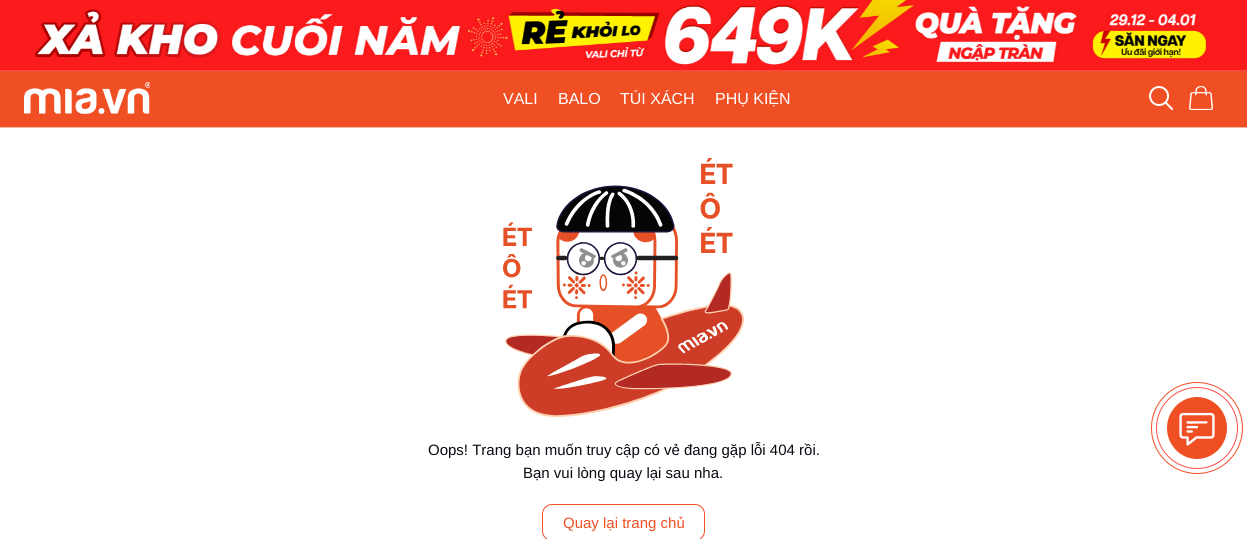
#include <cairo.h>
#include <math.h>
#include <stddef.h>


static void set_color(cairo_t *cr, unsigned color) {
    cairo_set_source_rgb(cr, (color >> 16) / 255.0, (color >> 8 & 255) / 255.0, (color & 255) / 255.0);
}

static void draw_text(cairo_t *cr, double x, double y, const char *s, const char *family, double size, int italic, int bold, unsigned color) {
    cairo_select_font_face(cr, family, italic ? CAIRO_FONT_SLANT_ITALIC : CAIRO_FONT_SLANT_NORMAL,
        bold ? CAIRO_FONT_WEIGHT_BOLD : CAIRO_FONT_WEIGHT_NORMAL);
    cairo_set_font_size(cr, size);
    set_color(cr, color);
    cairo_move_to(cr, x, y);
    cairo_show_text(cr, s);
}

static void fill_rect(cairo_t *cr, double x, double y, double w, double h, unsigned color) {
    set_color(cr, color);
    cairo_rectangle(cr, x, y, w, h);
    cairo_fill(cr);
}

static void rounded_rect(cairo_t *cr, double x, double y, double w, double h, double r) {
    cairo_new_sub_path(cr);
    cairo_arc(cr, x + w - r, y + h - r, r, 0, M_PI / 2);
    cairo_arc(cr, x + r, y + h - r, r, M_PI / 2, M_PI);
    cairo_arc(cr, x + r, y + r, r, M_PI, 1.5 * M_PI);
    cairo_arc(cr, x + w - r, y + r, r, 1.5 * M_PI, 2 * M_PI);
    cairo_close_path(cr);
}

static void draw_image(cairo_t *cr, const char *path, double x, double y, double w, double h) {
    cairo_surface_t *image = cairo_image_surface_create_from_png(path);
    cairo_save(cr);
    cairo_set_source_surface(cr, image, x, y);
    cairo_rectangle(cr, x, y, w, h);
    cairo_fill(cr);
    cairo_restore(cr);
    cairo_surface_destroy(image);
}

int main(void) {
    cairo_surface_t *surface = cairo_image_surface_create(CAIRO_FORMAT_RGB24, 1247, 539);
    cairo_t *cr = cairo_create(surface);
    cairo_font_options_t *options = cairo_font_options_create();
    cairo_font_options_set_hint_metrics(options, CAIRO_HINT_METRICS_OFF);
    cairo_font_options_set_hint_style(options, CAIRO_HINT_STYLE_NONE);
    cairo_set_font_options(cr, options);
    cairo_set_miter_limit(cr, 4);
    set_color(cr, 0xFFFFFF);
    cairo_paint(cr);
    fill_rect(cr, 0, 71, 1247, 56, 0xF04F24);
    fill_rect(cr, 0, 127, 1247, 1, 0xF9B9A7);
    fill_rect(cr, 0, 0, 1247, 70, 0xFB1A1C);
    fill_rect(cr, 0, 70, 1247, 1, 0xFC4849);
    draw_image(cr, "assets/img1.png", 34, 0, 1173, 65);
    draw_image(cr, "assets/img2.png", 24, 82, 126, 32);
    draw_text(cr, 503, 104, "VALI", "Liberation Sans", 16, 0, 0, 0xFFFFFF);
    draw_text(cr, 558, 104, "BALO", "Liberation Sans", 16, 0, 0, 0xFFFFFF);
    draw_text(cr, 620, 104, "TÚI XÁCH", "Liberation Sans", 16, 0, 0, 0xFFFFFF);
    draw_text(cr, 715, 104, "PHỤ KIỆN", "Liberation Sans", 16, 0, 0, 0xFFFFFF);
    draw_image(cr, "assets/img3.png", 1149, 86, 24, 24);
    draw_image(cr, "assets/img4.png", 1189, 86, 24, 24);
    set_color(cr, 0xF04F24);
    cairo_new_path(cr);
    cairo_move_to(cr, 1197, 397);
    cairo_curve_to(cr, 1213.5, 397, 1227, 411, 1227, 428);
    cairo_curve_to(cr, 1227, 445, 1213.5, 459, 1197, 459);
    cairo_curve_to(cr, 1180.5, 459, 1167, 445, 1167, 428);
    cairo_curve_to(cr, 1167, 411, 1180.5, 397, 1197, 397);
    cairo_close_path(cr);
    cairo_fill(cr);
    draw_image(cr, "assets/img5.png", 1179, 412, 36, 34);
    cairo_arc(cr, 1197, 428, 45.5, 0, 2 * M_PI);
    cairo_set_line_width(cr, 1);
    cairo_stroke(cr);
    cairo_arc(cr, 1197, 428, 40.5, 0, 2 * M_PI);
    set_color(cr, 0xFF4C4C);
    cairo_stroke(cr);
    draw_image(cr, "assets/img6.png", 503, 158, 241, 259);
    draw_text(cr, 428, 455, "Oops! Trang bạn muốn truy cập có vẻ đang gặp lỗi 404 rồi.", "Liberation Sans", 15, 0, 0, 0x070B11);
    draw_text(cr, 523, 478, "Bạn vui lòng quay lại sau nha.", "Liberation Sans", 15, 0, 0, 0x070B11);
    rounded_rect(cr, 542.5, 504.5, 162, 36, 9.5);
    set_color(cr, 0xF04F24);
    cairo_stroke(cr);
    draw_text(cr, 563, 528, "Quay lại trang chủ", "Liberation Sans", 15, 0, 0, 0xF04F24);
    cairo_surface_write_to_png(surface, "output.png");
    cairo_font_options_destroy(options);
    cairo_destroy(cr);
    cairo_surface_destroy(surface);
    return 0;
}
